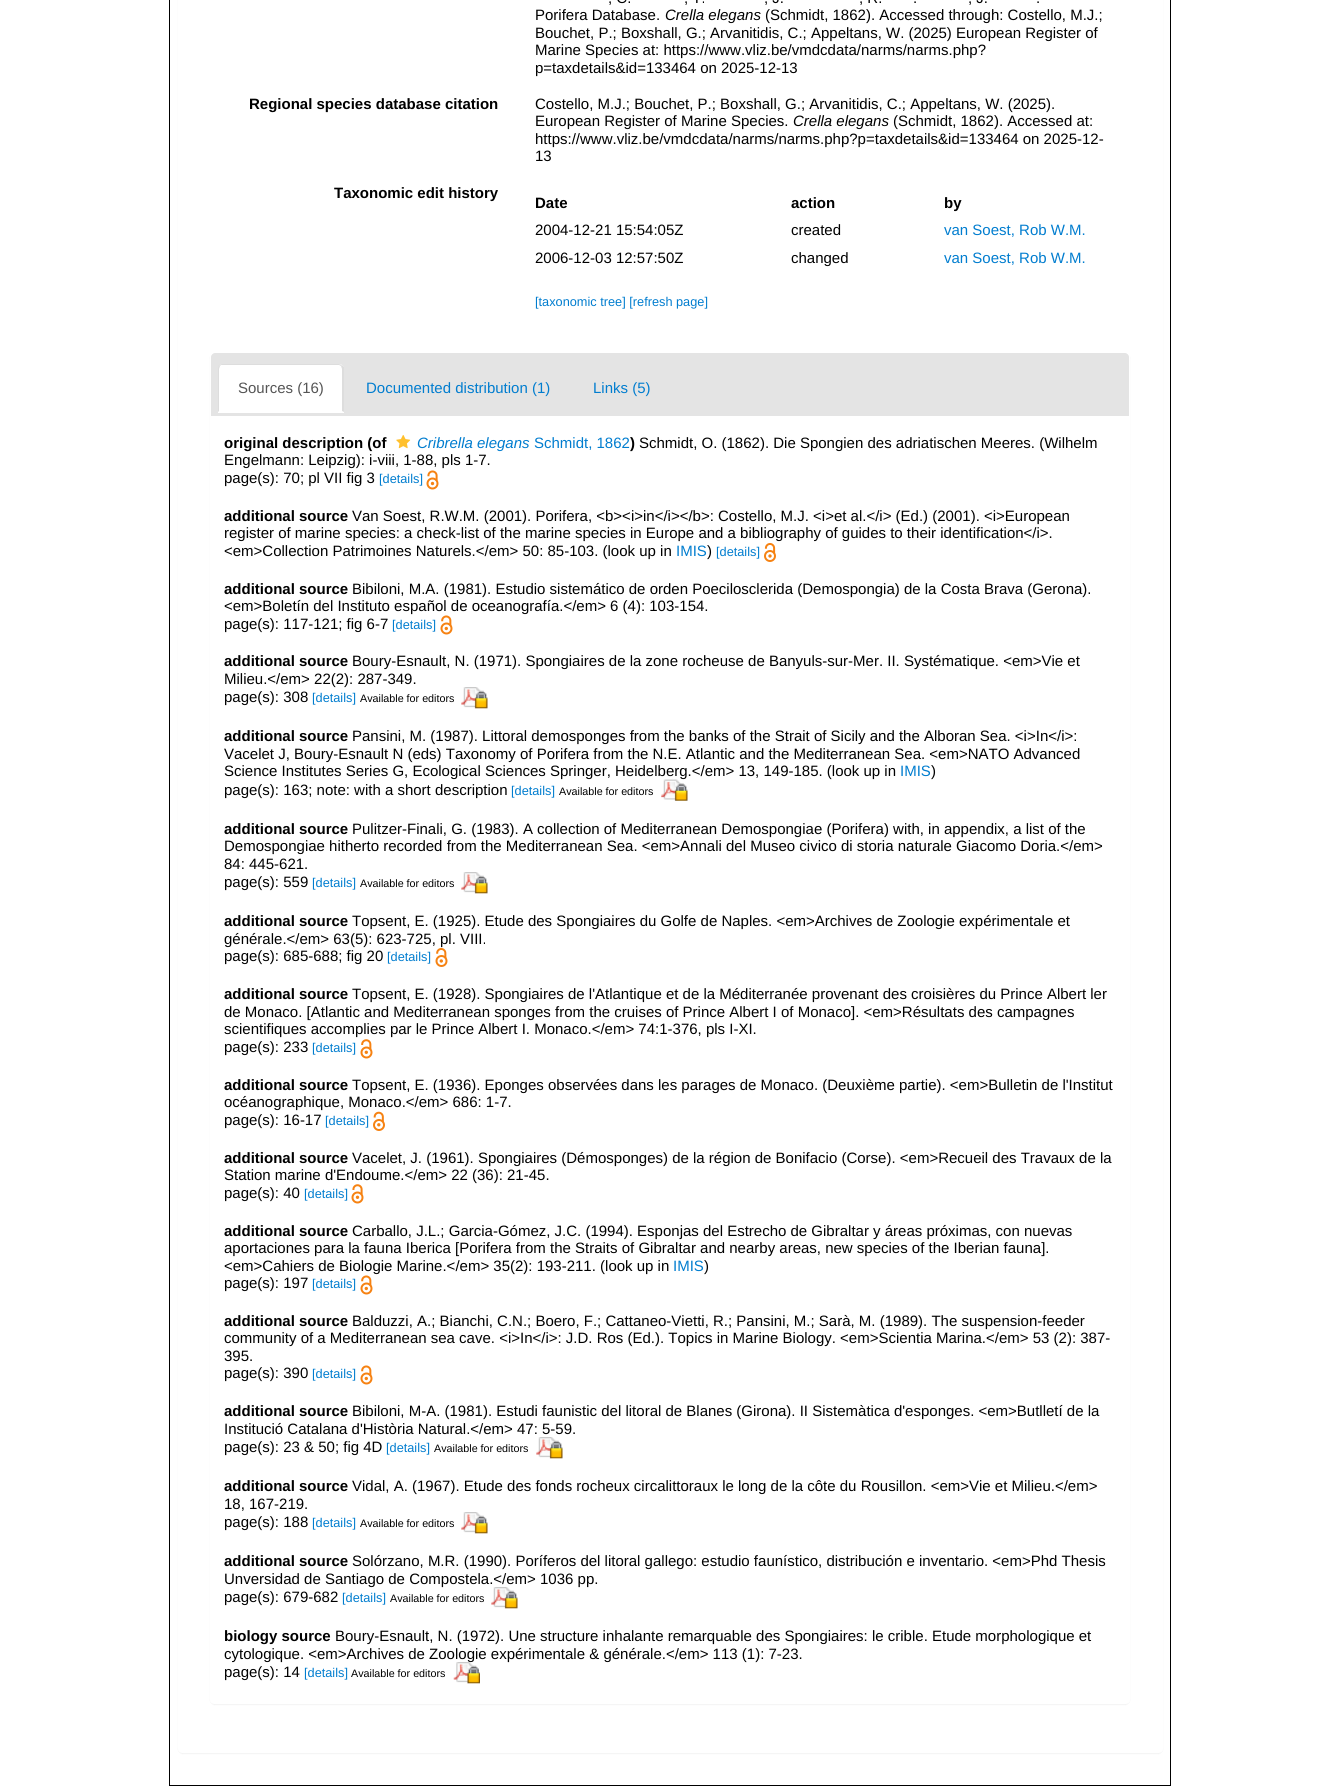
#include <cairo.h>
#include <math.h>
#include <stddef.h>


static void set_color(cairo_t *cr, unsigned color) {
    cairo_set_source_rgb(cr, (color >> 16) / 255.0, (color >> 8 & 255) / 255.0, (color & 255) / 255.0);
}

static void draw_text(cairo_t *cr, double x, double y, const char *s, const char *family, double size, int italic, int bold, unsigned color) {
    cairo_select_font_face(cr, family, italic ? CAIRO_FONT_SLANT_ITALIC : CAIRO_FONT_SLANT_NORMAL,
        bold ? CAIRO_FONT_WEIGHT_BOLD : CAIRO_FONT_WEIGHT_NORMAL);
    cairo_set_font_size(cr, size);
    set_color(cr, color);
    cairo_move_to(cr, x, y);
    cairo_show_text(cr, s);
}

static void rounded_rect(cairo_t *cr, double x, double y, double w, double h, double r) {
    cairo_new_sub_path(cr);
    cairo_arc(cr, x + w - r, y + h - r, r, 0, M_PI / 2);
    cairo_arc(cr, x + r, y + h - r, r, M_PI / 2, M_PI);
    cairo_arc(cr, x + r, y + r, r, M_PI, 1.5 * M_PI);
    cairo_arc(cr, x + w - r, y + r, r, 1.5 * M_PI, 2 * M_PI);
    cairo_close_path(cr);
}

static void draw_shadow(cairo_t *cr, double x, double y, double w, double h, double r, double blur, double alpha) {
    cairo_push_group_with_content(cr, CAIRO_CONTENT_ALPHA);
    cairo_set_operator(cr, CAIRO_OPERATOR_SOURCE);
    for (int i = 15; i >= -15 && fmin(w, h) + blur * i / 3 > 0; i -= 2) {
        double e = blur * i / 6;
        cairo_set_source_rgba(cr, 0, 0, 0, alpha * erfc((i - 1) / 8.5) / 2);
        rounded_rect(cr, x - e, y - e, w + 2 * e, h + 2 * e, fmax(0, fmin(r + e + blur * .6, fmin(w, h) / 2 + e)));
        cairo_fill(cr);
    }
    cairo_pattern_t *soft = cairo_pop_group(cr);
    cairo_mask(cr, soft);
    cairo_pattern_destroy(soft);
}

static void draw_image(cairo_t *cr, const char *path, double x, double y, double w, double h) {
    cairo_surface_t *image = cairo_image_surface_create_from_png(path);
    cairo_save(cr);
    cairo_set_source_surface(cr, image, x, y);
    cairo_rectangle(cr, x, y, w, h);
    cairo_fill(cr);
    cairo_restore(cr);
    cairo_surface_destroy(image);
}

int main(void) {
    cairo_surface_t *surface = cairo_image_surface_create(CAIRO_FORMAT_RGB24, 1339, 1786);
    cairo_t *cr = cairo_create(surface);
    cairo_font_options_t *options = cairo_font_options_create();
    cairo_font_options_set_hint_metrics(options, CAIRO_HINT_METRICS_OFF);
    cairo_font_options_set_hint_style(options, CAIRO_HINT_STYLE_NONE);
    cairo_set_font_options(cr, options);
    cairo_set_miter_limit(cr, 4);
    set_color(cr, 0xFFFFFF);
    cairo_paint(cr);
    cairo_rectangle(cr, 169.5, -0.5, 1001, 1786);
    set_color(cr, 0x000000);
    cairo_set_line_width(cr, 1);
    cairo_stroke(cr);
    cairo_save(cr);
    cairo_set_fill_rule(cr, CAIRO_FILL_RULE_EVEN_ODD);
    cairo_new_path(cr);
    cairo_move_to(cr, 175, 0);
    cairo_line_to(cr, 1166, 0);
    cairo_line_to(cr, 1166, 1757);
    cairo_line_to(cr, 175, 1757);
    cairo_close_path(cr);
    cairo_move_to(cr, 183, -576);
    cairo_line_to(cr, 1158, -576);
    cairo_curve_to(cr, 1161, -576, 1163, -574, 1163, -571);
    cairo_line_to(cr, 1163, 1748);
    cairo_curve_to(cr, 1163, 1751, 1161, 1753, 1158, 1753);
    cairo_line_to(cr, 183, 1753);
    cairo_curve_to(cr, 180, 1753, 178, 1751, 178, 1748);
    cairo_line_to(cr, 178, -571);
    cairo_curve_to(cr, 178, -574, 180, -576, 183, -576);
    cairo_close_path(cr);
    cairo_clip(cr);
    set_color(cr, 0x000000);
    draw_shadow(cr, 178, -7, 985, 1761, 5, 0.5, 0.05);
    cairo_restore(cr);
    draw_text(cr, 608, 3, ", C.", "Liberation Sans", 15, 0, 0, 0x000000);
    draw_text(cr, 684, 3, ", T.", "Liberation Sans", 15, 0, 0, 0x000000);
    draw_text(cr, 764, 3, ", J.", "Liberation Sans", 15, 0, 0, 0x000000);
    draw_text(cr, 859, 3, ", R.", "Liberation Sans", 15, 0, 0, 0x000000);
    draw_text(cr, 913, 3, ".", "Liberation Sans", 15, 0, 0, 0x000000);
    draw_text(cr, 968, 3, ", J.", "Liberation Sans", 15, 0, 0, 0x000000);
    draw_text(cr, 1036, 3, ".", "Liberation Sans", 15, 0, 0, 0x000000);
    draw_text(cr, 535, 20, "Porifera Database.", "Liberation Sans", 15, 0, 0, 0x000000);
    draw_text(cr, 665, 20, "Crella elegans", "Liberation Sans", 15, 1, 0, 0x000000);
    draw_text(cr, 765, 20, "(Schmidt, 1862). Accessed through: Costello, M.J.;", "Liberation Sans", 15, 0, 0, 0x000000);
    draw_text(cr, 535, 38, "Bouchet, P.; Boxshall, G.; Arvanitidis, C.; Appeltans, W. (2025) European Register of", "Liberation Sans", 15, 0, 0, 0x000000);
    draw_text(cr, 535, 55, "Marine Species at: https://www.vliz.be/vmdcdata/narms/narms.php?", "Liberation Sans", 15, 0, 0, 0x000000);
    draw_text(cr, 535, 73, "p=taxdetails&id=133464 on 2025-12-13", "Liberation Sans", 15, 0, 0, 0x000000);
    draw_text(cr, 249, 109, "Regional species database citation", "Liberation Sans", 15, 0, 1, 0x000000);
    draw_text(cr, 535, 109, "Costello, M.J.; Bouchet, P.; Boxshall, G.; Arvanitidis, C.; Appeltans, W. (2025).", "Liberation Sans", 15, 0, 0, 0x000000);
    draw_text(cr, 535, 126, "European Register of Marine Species.", "Liberation Sans", 15, 0, 0, 0x000000);
    draw_text(cr, 793, 126, "Crella elegans", "Liberation Sans", 15, 1, 0, 0x000000);
    draw_text(cr, 893, 126, "(Schmidt, 1862). Accessed at:", "Liberation Sans", 15, 0, 0, 0x000000);
    draw_text(cr, 535, 144, "https://www.vliz.be/vmdcdata/narms/narms.php?p=taxdetails&id=133464 on 2025-12-", "Liberation Sans", 15, 0, 0, 0x000000);
    draw_text(cr, 535, 161, "13", "Liberation Sans", 15, 0, 0, 0x000000);
    draw_text(cr, 334, 198, "Taxonomic edit history", "Liberation Sans", 15, 0, 1, 0x000000);
    draw_text(cr, 535, 208, "Date", "Liberation Sans", 15, 0, 1, 0x000000);
    draw_text(cr, 791, 208, "action", "Liberation Sans", 15, 0, 1, 0x000000);
    draw_text(cr, 944, 208, "by", "Liberation Sans", 15, 0, 1, 0x000000);
    draw_text(cr, 535, 235, "2004-12-21 15:54:05Z", "Liberation Sans", 15, 0, 0, 0x000000);
    draw_text(cr, 791, 235, "created", "Liberation Sans", 15, 0, 0, 0x000000);
    draw_text(cr, 944, 235, "van Soest, Rob W.M.", "Liberation Sans", 15, 0, 0, 0x017DCF);
    draw_text(cr, 535, 263, "2006-12-03 12:57:50Z", "Liberation Sans", 15, 0, 0, 0x000000);
    draw_text(cr, 791, 263, "changed", "Liberation Sans", 15, 0, 0, 0x000000);
    draw_text(cr, 944, 263, "van Soest, Rob W.M.", "Liberation Sans", 15, 0, 0, 0x017DCF);
    draw_text(cr, 535, 306, "[taxonomic tree] [refresh page]", "Liberation Sans", 12.75, 0, 0, 0x017DCF);
    cairo_save(cr);
    cairo_set_fill_rule(cr, CAIRO_FILL_RULE_EVEN_ODD);
    cairo_new_path(cr);
    cairo_move_to(cr, 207, 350);
    cairo_line_to(cr, 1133, 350);
    cairo_line_to(cr, 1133, 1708);
    cairo_line_to(cr, 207, 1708);
    cairo_close_path(cr);
    cairo_move_to(cr, 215, 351);
    cairo_line_to(cr, 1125, 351);
    cairo_curve_to(cr, 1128, 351, 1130, 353, 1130, 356);
    cairo_line_to(cr, 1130, 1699);
    cairo_curve_to(cr, 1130, 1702, 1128, 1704, 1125, 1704);
    cairo_line_to(cr, 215, 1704);
    cairo_curve_to(cr, 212, 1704, 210, 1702, 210, 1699);
    cairo_line_to(cr, 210, 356);
    cairo_curve_to(cr, 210, 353, 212, 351, 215, 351);
    cairo_close_path(cr);
    cairo_clip(cr);
    set_color(cr, 0x000000);
    draw_shadow(cr, 210, 353, 920, 1352, 5, 0.5, 0.05);
    cairo_restore(cr);
    set_color(cr, 0xE4E4E4);
    cairo_new_path(cr);
    cairo_move_to(cr, 215, 353);
    cairo_line_to(cr, 1125, 353);
    cairo_curve_to(cr, 1127, 353, 1129, 355, 1129, 357);
    cairo_line_to(cr, 1129, 416);
    cairo_line_to(cr, 211, 416);
    cairo_line_to(cr, 211, 357);
    cairo_curve_to(cr, 211, 355, 213, 353, 215, 353);
    cairo_close_path(cr);
    cairo_fill(cr);
    set_color(cr, 0xFFFFFF);
    cairo_new_path(cr);
    cairo_move_to(cr, 223, 364);
    cairo_line_to(cr, 339, 364);
    cairo_curve_to(cr, 342, 364, 344, 366, 344, 369);
    cairo_line_to(cr, 344, 413);
    cairo_line_to(cr, 218, 413);
    cairo_line_to(cr, 218, 369);
    cairo_curve_to(cr, 218, 366, 220, 364, 223, 364);
    cairo_close_path(cr);
    cairo_fill(cr);
    set_color(cr, 0xDDDDDD);
    cairo_new_path(cr);
    cairo_move_to(cr, 222, 364);
    cairo_curve_to(cr, 221, 364, 220, 365, 219, 365);
    cairo_line_to(cr, 220, 366);
    cairo_line_to(cr, 221, 365);
    cairo_line_to(cr, 339, 365);
    cairo_line_to(cr, 341, 366);
    cairo_line_to(cr, 342, 365);
    cairo_line_to(cr, 339, 364);
    cairo_close_path(cr);
    cairo_fill(cr);
    cairo_new_path(cr);
    cairo_move_to(cr, 342, 365);
    cairo_line_to(cr, 344, 367);
    cairo_line_to(cr, 344, 412);
    cairo_line_to(cr, 342, 411);
    cairo_line_to(cr, 342, 369);
    cairo_line_to(cr, 341, 366);
    cairo_close_path(cr);
    cairo_fill(cr);
    cairo_new_path(cr);
    cairo_move_to(cr, 219, 365);
    cairo_curve_to(cr, 218, 366, 218, 368, 218, 369);
    cairo_line_to(cr, 218, 412);
    cairo_line_to(cr, 219, 411);
    cairo_line_to(cr, 219, 369);
    cairo_line_to(cr, 220, 366);
    cairo_close_path(cr);
    cairo_fill(cr);
    draw_text(cr, 238, 393, "Sources (16)", "Liberation Sans", 15, 0, 0, 0x555555);
    draw_text(cr, 366, 393, "Documented distribution (1)", "Liberation Sans", 15, 0, 0, 0x017DCF);
    draw_text(cr, 593, 393, "Links (5)", "Liberation Sans", 15, 0, 0, 0x017DCF);
    draw_text(cr, 224, 448, "original description (of", "Liberation Sans", 15, 0, 1, 0x000000);
    draw_image(cr, "assets/img1.png", 396, 435, 15, 14);
    draw_text(cr, 417, 448, "Cribrella elegans", "Liberation Sans", 15, 1, 0, 0x017DCF);
    draw_text(cr, 534, 448, "Schmidt, 1862", "Liberation Sans", 15, 0, 0, 0x017DCF);
    draw_text(cr, 630, 448, ")", "Liberation Sans", 15, 0, 1, 0x000000);
    draw_text(cr, 639, 448, "Schmidt, O. (1862). Die Spongien des adriatischen Meeres. (Wilhelm", "Liberation Sans", 15, 0, 0, 0x000000);
    draw_text(cr, 224, 465, "Engelmann: Leipzig): i-viii, 1-88, pls 1-7.", "Liberation Sans", 15, 0, 0, 0x000000);
    draw_text(cr, 224, 483, "page(s): 70; pl VII fig 3", "Liberation Sans", 15, 0, 0, 0x000000);
    draw_text(cr, 379, 483, "[details]", "Liberation Sans", 12.75, 0, 0, 0x017DCF);
    draw_image(cr, "assets/img2.png", 426, 470, 13, 20);
    draw_text(cr, 224, 521, "additional source", "Liberation Sans", 15, 0, 1, 0x000000);
    draw_text(cr, 352, 521, "Van Soest, R.W.M. (2001). Porifera, <b><i>in</i></b>: Costello, M.J. <i>et al.</i> (Ed.) (2001). <i>European", "Liberation Sans", 15, 0, 0, 0x000000);
    draw_text(cr, 224, 538, "register of marine species: a check-list of the marine species in Europe and a bibliography of guides to their identification</i>.", "Liberation Sans", 15, 0, 0, 0x000000);
    draw_text(cr, 224, 556, "<em>Collection Patrimoines Naturels.</em> 50: 85-103. (look up in", "Liberation Sans", 15, 0, 0, 0x000000);
    draw_text(cr, 676, 556, "IMIS", "Liberation Sans", 15, 0, 0, 0x017DCF);
    draw_text(cr, 707, 556, ")", "Liberation Sans", 15, 0, 0, 0x000000);
    draw_text(cr, 716, 556, "[details]", "Liberation Sans", 12.75, 0, 0, 0x017DCF);
    draw_image(cr, "assets/img3.png", 764, 543, 12, 19);
    draw_text(cr, 224, 594, "additional source", "Liberation Sans", 15, 0, 1, 0x000000);
    draw_text(cr, 352, 594, "Bibiloni, M.A. (1981). Estudio sistemático de orden Poecilosclerida (Demospongia) de la Costa Brava (Gerona).", "Liberation Sans", 15, 0, 0, 0x000000);
    draw_text(cr, 224, 611, "<em>Boletín del Instituto español de oceanografía.</em> 6 (4): 103-154.", "Liberation Sans", 15, 0, 0, 0x000000);
    draw_text(cr, 224, 629, "page(s): 117-121; fig 6-7", "Liberation Sans", 15, 0, 0, 0x000000);
    draw_text(cr, 392, 629, "[details]", "Liberation Sans", 12.75, 0, 0, 0x017DCF);
    draw_image(cr, "assets/img4.png", 440, 615, 13, 20);
    draw_text(cr, 224, 666, "additional source", "Liberation Sans", 15, 0, 1, 0x000000);
    draw_text(cr, 352, 666, "Boury-Esnault, N. (1971). Spongiaires de la zone rocheuse de Banyuls-sur-Mer. II. Systématique. <em>Vie et", "Liberation Sans", 15, 0, 0, 0x000000);
    draw_text(cr, 224, 684, "Milieu.</em> 22(2): 287-349.", "Liberation Sans", 15, 0, 0, 0x000000);
    draw_text(cr, 224, 702, "page(s): 308", "Liberation Sans", 15, 0, 0, 0x000000);
    draw_text(cr, 312, 702, "[details]", "Liberation Sans", 12.75, 0, 0, 0x017DCF);
    draw_text(cr, 360, 702, "Available for editors", "Liberation Sans", 10.75, 0, 0, 0x000000);
    draw_image(cr, "assets/img5.png", 461, 687, 27, 22);
    draw_text(cr, 224, 741, "additional source", "Liberation Sans", 15, 0, 1, 0x000000);
    draw_text(cr, 352, 741, "Pansini, M. (1987). Littoral demosponges from the banks of the Strait of Sicily and the Alboran Sea. <i>In</i>:", "Liberation Sans", 15, 0, 0, 0x000000);
    draw_text(cr, 224, 759, "Vacelet J, Boury-Esnault N (eds) Taxonomy of Porifera from the N.E. Atlantic and the Mediterranean Sea. <em>NATO Advanced", "Liberation Sans", 15, 0, 0, 0x000000);
    draw_text(cr, 224, 776, "Science Institutes Series G, Ecological Sciences Springer, Heidelberg.</em> 13, 149-185. (look up in", "Liberation Sans", 15, 0, 0, 0x000000);
    draw_text(cr, 900, 776, "IMIS", "Liberation Sans", 15, 0, 0, 0x017DCF);
    draw_text(cr, 931, 776, ")", "Liberation Sans", 15, 0, 0, 0x000000);
    draw_text(cr, 224, 795, "page(s): 163; note: with a short description", "Liberation Sans", 15, 0, 0, 0x000000);
    draw_text(cr, 511, 795, "[details]", "Liberation Sans", 12.75, 0, 0, 0x017DCF);
    draw_text(cr, 559, 795, "Available for editors", "Liberation Sans", 10.75, 0, 0, 0x000000);
    draw_image(cr, "assets/img6.png", 661, 779, 27, 22);
    draw_text(cr, 224, 834, "additional source", "Liberation Sans", 15, 0, 1, 0x000000);
    draw_text(cr, 352, 834, "Pulitzer-Finali, G. (1983). A collection of Mediterranean Demospongiae (Porifera) with, in appendix, a list of the", "Liberation Sans", 15, 0, 0, 0x000000);
    draw_text(cr, 224, 851, "Demospongiae hitherto recorded from the Mediterranean Sea. <em>Annali del Museo civico di storia naturale Giacomo Doria.</em>", "Liberation Sans", 15, 0, 0, 0x000000);
    draw_text(cr, 224, 869, "84: 445-621.", "Liberation Sans", 15, 0, 0, 0x000000);
    draw_text(cr, 224, 887, "page(s): 559", "Liberation Sans", 15, 0, 0, 0x000000);
    draw_text(cr, 312, 887, "[details]", "Liberation Sans", 12.75, 0, 0, 0x017DCF);
    draw_text(cr, 360, 887, "Available for editors", "Liberation Sans", 10.75, 0, 0, 0x000000);
    draw_image(cr, "assets/img5.png", 461, 872, 27, 22);
    draw_text(cr, 224, 926, "additional source", "Liberation Sans", 15, 0, 1, 0x000000);
    draw_text(cr, 352, 926, "Topsent, E. (1925). Etude des Spongiaires du Golfe de Naples. <em>Archives de Zoologie expérimentale et", "Liberation Sans", 15, 0, 0, 0x000000);
    draw_text(cr, 224, 944, "générale.</em> 63(5): 623-725, pl. VIII.", "Liberation Sans", 15, 0, 0, 0x000000);
    draw_text(cr, 224, 961, "page(s): 685-688; fig 20", "Liberation Sans", 15, 0, 0, 0x000000);
    draw_text(cr, 387, 961, "[details]", "Liberation Sans", 12.75, 0, 0, 0x017DCF);
    draw_image(cr, "assets/img7.png", 435, 948, 13, 19);
    draw_text(cr, 224, 999, "additional source", "Liberation Sans", 15, 0, 1, 0x000000);
    draw_text(cr, 352, 999, "Topsent, E. (1928). Spongiaires de l'Atlantique et de la Méditerranée provenant des croisières du Prince Albert ler", "Liberation Sans", 15, 0, 0, 0x000000);
    draw_text(cr, 224, 1017, "de Monaco. [Atlantic and Mediterranean sponges from the cruises of Prince Albert I of Monaco]. <em>Résultats des campagnes", "Liberation Sans", 15, 0, 0, 0x000000);
    draw_text(cr, 224, 1034, "scientifiques accomplies par le Prince Albert I. Monaco.</em> 74:1-376, pls I-XI.", "Liberation Sans", 15, 0, 0, 0x000000);
    draw_text(cr, 224, 1052, "page(s): 233", "Liberation Sans", 15, 0, 0, 0x000000);
    draw_text(cr, 312, 1052, "[details]", "Liberation Sans", 12.75, 0, 0, 0x017DCF);
    draw_image(cr, "assets/img8.png", 360, 1039, 13, 20);
    draw_text(cr, 224, 1090, "additional source", "Liberation Sans", 15, 0, 1, 0x000000);
    draw_text(cr, 352, 1090, "Topsent, E. (1936). Eponges observées dans les parages de Monaco. (Deuxième partie). <em>Bulletin de l'Institut", "Liberation Sans", 15, 0, 0, 0x000000);
    draw_text(cr, 224, 1107, "océanographique, Monaco.</em> 686: 1-7.", "Liberation Sans", 15, 0, 0, 0x000000);
    draw_text(cr, 224, 1125, "page(s): 16-17", "Liberation Sans", 15, 0, 0, 0x000000);
    draw_text(cr, 325, 1125, "[details]", "Liberation Sans", 12.75, 0, 0, 0x017DCF);
    draw_image(cr, "assets/img9.png", 373, 1111, 12, 20);
    draw_text(cr, 224, 1163, "additional source", "Liberation Sans", 15, 0, 1, 0x000000);
    draw_text(cr, 352, 1163, "Vacelet, J. (1961). Spongiaires (Démosponges) de la région de Bonifacio (Corse). <em>Recueil des Travaux de la", "Liberation Sans", 15, 0, 0, 0x000000);
    draw_text(cr, 224, 1180, "Station marine d'Endoume.</em> 22 (36): 21-45.", "Liberation Sans", 15, 0, 0, 0x000000);
    draw_text(cr, 224, 1198, "page(s): 40", "Liberation Sans", 15, 0, 0, 0x000000);
    draw_text(cr, 304, 1198, "[details]", "Liberation Sans", 12.75, 0, 0, 0x017DCF);
    draw_image(cr, "assets/img10.png", 351, 1184, 13, 20);
    draw_text(cr, 224, 1236, "additional source", "Liberation Sans", 15, 0, 1, 0x000000);
    draw_text(cr, 352, 1236, "Carballo, J.L.; Garcia-Gómez, J.C. (1994). Esponjas del Estrecho de Gibraltar y áreas próximas, con nuevas", "Liberation Sans", 15, 0, 0, 0x000000);
    draw_text(cr, 224, 1253, "aportaciones para la fauna Iberica [Porifera from the Straits of Gibraltar and nearby areas, new species of the Iberian fauna].", "Liberation Sans", 15, 0, 0, 0x000000);
    draw_text(cr, 224, 1271, "<em>Cahiers de Biologie Marine.</em> 35(2): 193-211. (look up in", "Liberation Sans", 15, 0, 0, 0x000000);
    draw_text(cr, 673, 1271, "IMIS", "Liberation Sans", 15, 0, 0, 0x017DCF);
    draw_text(cr, 704, 1271, ")", "Liberation Sans", 15, 0, 0, 0x000000);
    draw_text(cr, 224, 1288, "page(s): 197", "Liberation Sans", 15, 0, 0, 0x000000);
    draw_text(cr, 312, 1288, "[details]", "Liberation Sans", 12.75, 0, 0, 0x017DCF);
    draw_image(cr, "assets/img4.png", 360, 1275, 13, 20);
    draw_text(cr, 224, 1326, "additional source", "Liberation Sans", 15, 0, 1, 0x000000);
    draw_text(cr, 352, 1326, "Balduzzi, A.; Bianchi, C.N.; Boero, F.; Cattaneo-Vietti, R.; Pansini, M.; Sarà, M. (1989). The suspension-feeder", "Liberation Sans", 15, 0, 0, 0x000000);
    draw_text(cr, 224, 1343, "community of a Mediterranean sea cave. <i>In</i>: J.D. Ros (Ed.). Topics in Marine Biology. <em>Scientia Marina.</em> 53 (2): 387-", "Liberation Sans", 15, 0, 0, 0x000000);
    draw_text(cr, 224, 1361, "395.", "Liberation Sans", 15, 0, 0, 0x000000);
    draw_text(cr, 224, 1378, "page(s): 390", "Liberation Sans", 15, 0, 0, 0x000000);
    draw_text(cr, 312, 1378, "[details]", "Liberation Sans", 12.75, 0, 0, 0x017DCF);
    draw_image(cr, "assets/img4.png", 360, 1365, 13, 20);
    draw_text(cr, 224, 1416, "additional source", "Liberation Sans", 15, 0, 1, 0x000000);
    draw_text(cr, 352, 1416, "Bibiloni, M-A. (1981). Estudi faunistic del litoral de Blanes (Girona). II Sistemàtica d'esponges. <em>Butlletí de la", "Liberation Sans", 15, 0, 0, 0x000000);
    draw_text(cr, 224, 1434, "Institució Catalana d'Història Natural.</em> 47: 5-59.", "Liberation Sans", 15, 0, 0, 0x000000);
    draw_text(cr, 224, 1452, "page(s): 23 & 50; fig 4D", "Liberation Sans", 15, 0, 0, 0x000000);
    draw_text(cr, 386, 1452, "[details]", "Liberation Sans", 12.75, 0, 0, 0x017DCF);
    draw_text(cr, 434, 1452, "Available for editors", "Liberation Sans", 10.75, 0, 0, 0x000000);
    draw_image(cr, "assets/img5.png", 536, 1437, 27, 22);
    draw_text(cr, 224, 1491, "additional source", "Liberation Sans", 15, 0, 1, 0x000000);
    draw_text(cr, 352, 1491, "Vidal, A. (1967). Etude des fonds rocheux circalittoraux le long de la côte du Rousillon. <em>Vie et Milieu.</em>", "Liberation Sans", 15, 0, 0, 0x000000);
    draw_text(cr, 224, 1509, "18, 167-219.", "Liberation Sans", 15, 0, 0, 0x000000);
    draw_text(cr, 224, 1527, "page(s): 188", "Liberation Sans", 15, 0, 0, 0x000000);
    draw_text(cr, 312, 1527, "[details]", "Liberation Sans", 12.75, 0, 0, 0x017DCF);
    draw_text(cr, 360, 1527, "Available for editors", "Liberation Sans", 10.75, 0, 0, 0x000000);
    draw_image(cr, "assets/img5.png", 461, 1512, 27, 22);
    draw_text(cr, 224, 1566, "additional source", "Liberation Sans", 15, 0, 1, 0x000000);
    draw_text(cr, 352, 1566, "Solórzano, M.R. (1990). Poríferos del litoral gallego: estudio faunístico, distribución e inventario. <em>Phd Thesis", "Liberation Sans", 15, 0, 0, 0x000000);
    draw_text(cr, 224, 1584, "Unversidad de Santiago de Compostela.</em> 1036 pp.", "Liberation Sans", 15, 0, 0, 0x000000);
    draw_text(cr, 224, 1602, "page(s): 679-682", "Liberation Sans", 15, 0, 0, 0x000000);
    draw_text(cr, 342, 1602, "[details]", "Liberation Sans", 12.75, 0, 0, 0x017DCF);
    draw_text(cr, 390, 1602, "Available for editors", "Liberation Sans", 10.75, 0, 0, 0x000000);
    draw_image(cr, "assets/img5.png", 491, 1587, 27, 22);
    draw_text(cr, 224, 1641, "biology source", "Liberation Sans", 15, 0, 1, 0x000000);
    draw_text(cr, 335, 1641, "Boury-Esnault, N. (1972). Une structure inhalante remarquable des Spongiaires: le crible. Etude morphologique et", "Liberation Sans", 15, 0, 0, 0x000000);
    draw_text(cr, 224, 1659, "cytologique. <em>Archives de Zoologie expérimentale & générale.</em> 113 (1): 7-23.", "Liberation Sans", 15, 0, 0, 0x000000);
    draw_text(cr, 224, 1677, "page(s): 14", "Liberation Sans", 15, 0, 0, 0x000000);
    draw_text(cr, 304, 1677, "[details]", "Liberation Sans", 12.75, 0, 0, 0x017DCF);
    draw_text(cr, 351, 1677, "Available for editors", "Liberation Sans", 10.75, 0, 0, 0x000000);
    draw_image(cr, "assets/img11.png", 453, 1662, 27, 22);
    cairo_surface_write_to_png(surface, "output.png");
    cairo_font_options_destroy(options);
    cairo_destroy(cr);
    cairo_surface_destroy(surface);
    return 0;
}
